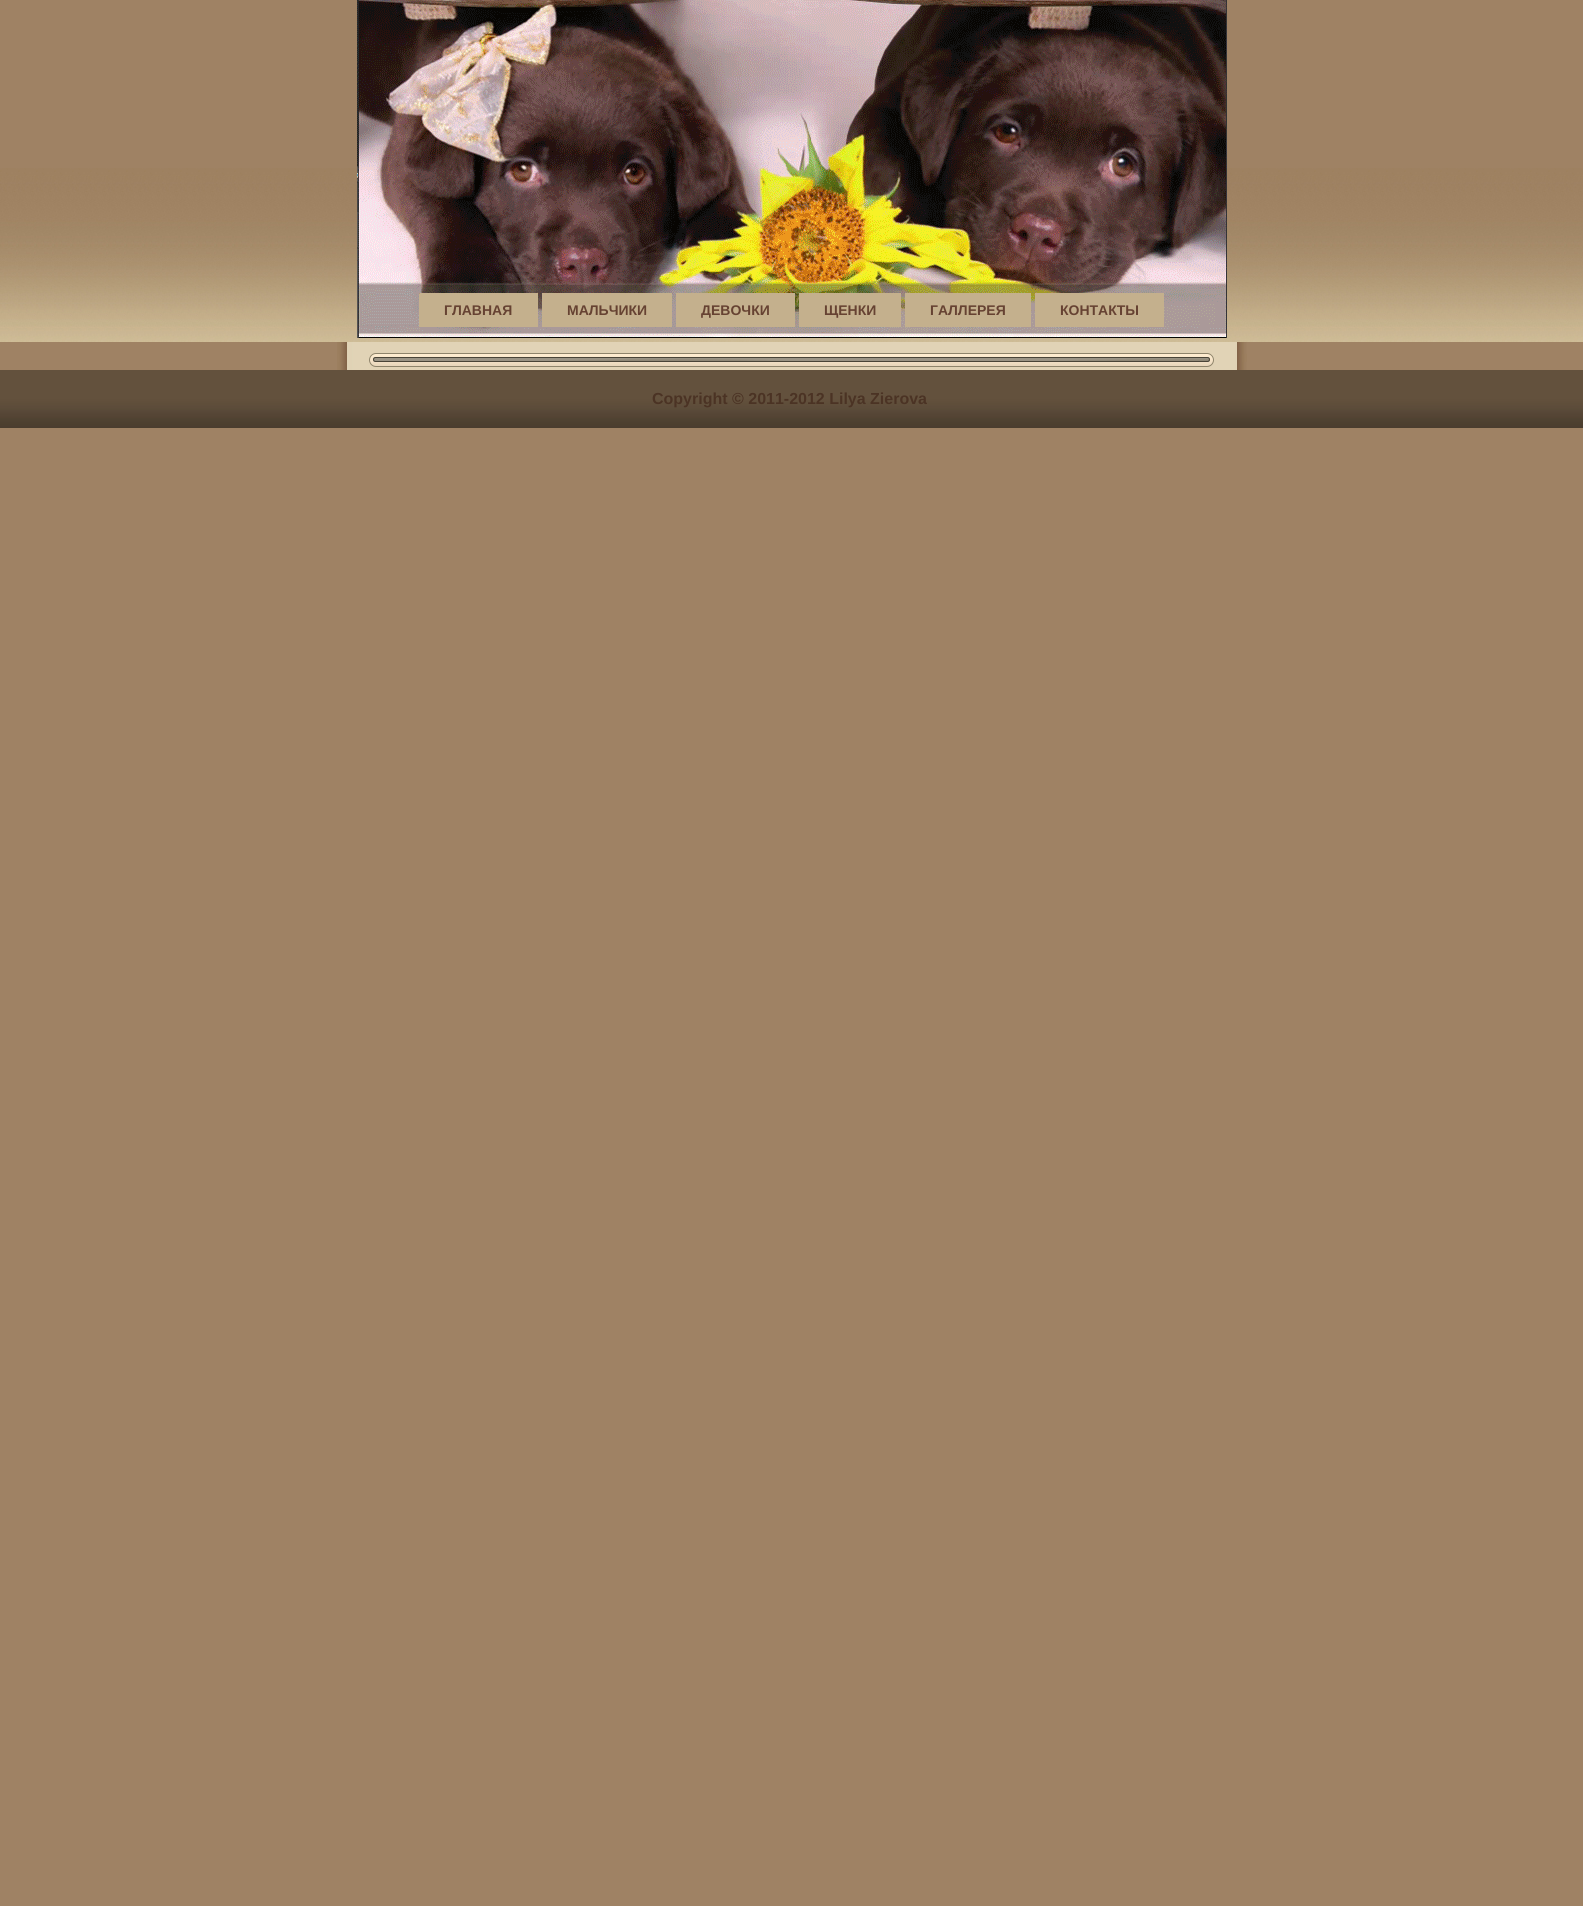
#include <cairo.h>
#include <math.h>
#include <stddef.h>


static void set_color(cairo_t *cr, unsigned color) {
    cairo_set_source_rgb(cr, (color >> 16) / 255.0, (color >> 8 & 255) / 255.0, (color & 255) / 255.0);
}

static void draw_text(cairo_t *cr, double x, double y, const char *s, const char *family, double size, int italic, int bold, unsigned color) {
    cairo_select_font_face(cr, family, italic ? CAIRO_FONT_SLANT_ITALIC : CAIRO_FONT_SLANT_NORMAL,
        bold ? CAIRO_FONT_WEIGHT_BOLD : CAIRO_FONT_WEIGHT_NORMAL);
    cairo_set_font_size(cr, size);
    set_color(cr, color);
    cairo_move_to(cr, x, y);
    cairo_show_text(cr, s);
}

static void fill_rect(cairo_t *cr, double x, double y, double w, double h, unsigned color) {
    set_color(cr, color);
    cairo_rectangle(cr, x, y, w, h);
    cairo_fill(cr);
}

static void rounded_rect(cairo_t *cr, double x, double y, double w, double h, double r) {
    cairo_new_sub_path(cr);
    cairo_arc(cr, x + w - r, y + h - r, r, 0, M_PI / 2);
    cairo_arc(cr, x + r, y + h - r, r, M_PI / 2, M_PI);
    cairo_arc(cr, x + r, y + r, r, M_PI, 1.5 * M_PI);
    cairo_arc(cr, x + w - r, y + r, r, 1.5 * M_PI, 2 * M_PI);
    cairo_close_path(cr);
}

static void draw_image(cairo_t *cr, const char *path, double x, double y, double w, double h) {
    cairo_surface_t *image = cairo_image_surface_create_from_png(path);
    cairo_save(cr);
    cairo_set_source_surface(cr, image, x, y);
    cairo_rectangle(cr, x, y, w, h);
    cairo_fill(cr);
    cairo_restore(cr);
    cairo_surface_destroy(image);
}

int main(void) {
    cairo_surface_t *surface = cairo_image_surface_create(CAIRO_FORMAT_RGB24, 1583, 1906);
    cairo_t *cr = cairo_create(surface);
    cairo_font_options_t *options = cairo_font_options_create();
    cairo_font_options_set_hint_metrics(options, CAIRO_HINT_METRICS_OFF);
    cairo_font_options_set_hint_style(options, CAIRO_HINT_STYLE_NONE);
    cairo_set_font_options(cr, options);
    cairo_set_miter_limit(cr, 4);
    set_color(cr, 0x9F8264);
    cairo_paint(cr);
    draw_image(cr, "assets/img1.png", 0, 168, 1583, 174);
    draw_image(cr, "assets/img2.png", 357, 0, 870, 338);
    fill_rect(cr, 419, 293, 119, 34, 0xC4B08D);
    cairo_save(cr);
    cairo_rectangle(cr, 419, 293, 119, 34);
    cairo_clip(cr);
    set_color(cr, 0x9F8262);
    cairo_new_path(cr);
    cairo_move_to(cr, 251, 293);
    cairo_line_to(cr, 420, 293);
    cairo_line_to(cr, 370, 343);
    cairo_line_to(cr, 251, 343);
    cairo_close_path(cr);
    cairo_fill(cr);
    cairo_restore(cr);
    draw_text(cr, 444, 315, "ГЛАВНАЯ", "Liberation Sans", 14, 0, 1, 0x664232);
    fill_rect(cr, 542, 293, 130, 34, 0xC4B08D);
    draw_text(cr, 567, 315, "МАЛЬЧИКИ", "Liberation Sans", 14, 0, 1, 0x664232);
    fill_rect(cr, 676, 293, 119, 34, 0xC4B08D);
    draw_text(cr, 701, 315, "ДЕВОЧКИ", "Liberation Sans", 14, 0, 1, 0x664232);
    fill_rect(cr, 799, 293, 102, 34, 0xC4B08D);
    draw_text(cr, 824, 315, "ЩЕНКИ", "Liberation Sans", 14, 0, 1, 0x664232);
    fill_rect(cr, 905, 293, 126, 34, 0xC4B08D);
    draw_text(cr, 930, 315, "ГАЛЛЕРЕЯ", "Liberation Sans", 14, 0, 1, 0x664232);
    fill_rect(cr, 1035, 293, 129, 34, 0xC4B08D);
    draw_text(cr, 1060, 315, "КОНТАКТЫ", "Liberation Sans", 14, 0, 1, 0x664232);
    draw_image(cr, "assets/img3.png", 337, 342, 910, 28);
    draw_image(cr, "assets/img4.png", 369, 354, 845, 13);
    rounded_rect(cr, 369.5, 353.5, 844, 13, 6.5);
    set_color(cr, 0x8E846B);
    cairo_set_line_width(cr, 1);
    cairo_stroke(cr);
    draw_image(cr, "assets/img5.png", 373, 357, 837, 5);
    rounded_rect(cr, 373.5, 357.5, 836, 4, 2);
    set_color(cr, 0x494437);
    cairo_stroke(cr);
    draw_image(cr, "assets/img6.png", 0, 370, 1583, 58);
    draw_text(cr, 652, 404, "Copyright © 2011-2012 Lilya Zierova", "Liberation Sans", 16, 0, 1, 0x4B3324);
    cairo_surface_write_to_png(surface, "output.png");
    cairo_font_options_destroy(options);
    cairo_destroy(cr);
    cairo_surface_destroy(surface);
    return 0;
}
